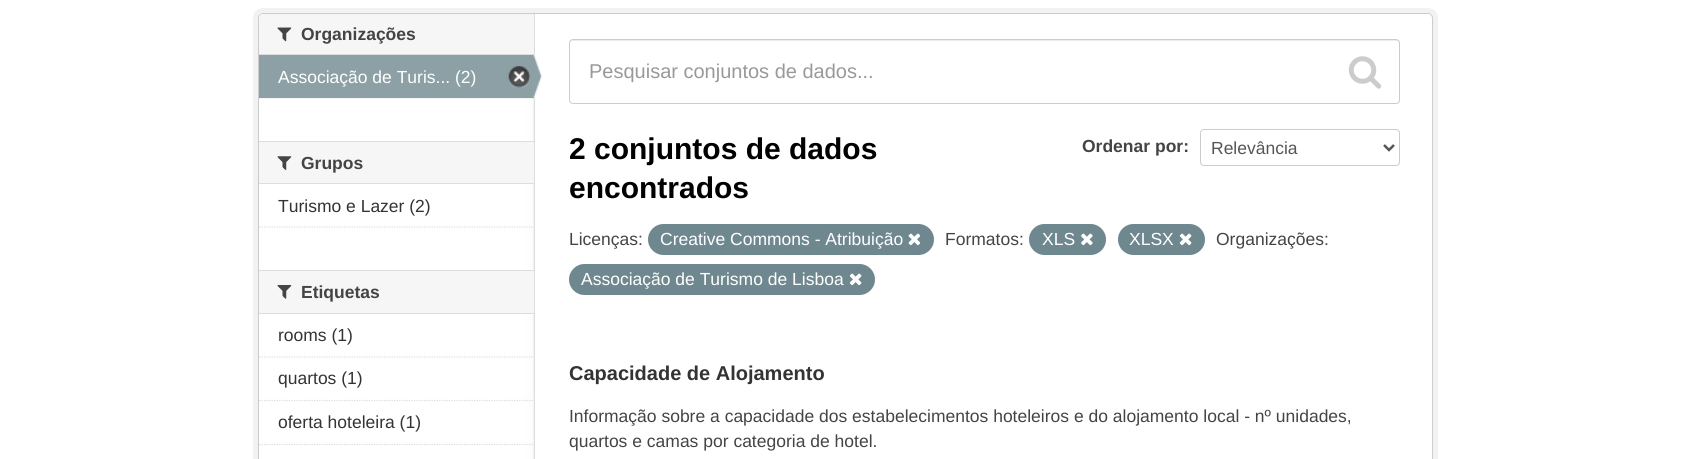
#include <cairo.h>
#include <math.h>
#include <stddef.h>


static void set_color(cairo_t *cr, unsigned color) {
    cairo_set_source_rgb(cr, (color >> 16) / 255.0, (color >> 8 & 255) / 255.0, (color & 255) / 255.0);
}

static void draw_text(cairo_t *cr, double x, double y, const char *s, const char *family, double size, int italic, int bold, unsigned color) {
    cairo_select_font_face(cr, family, italic ? CAIRO_FONT_SLANT_ITALIC : CAIRO_FONT_SLANT_NORMAL,
        bold ? CAIRO_FONT_WEIGHT_BOLD : CAIRO_FONT_WEIGHT_NORMAL);
    cairo_set_font_size(cr, size);
    set_color(cr, color);
    cairo_move_to(cr, x, y);
    cairo_show_text(cr, s);
}

static void fill_rect(cairo_t *cr, double x, double y, double w, double h, unsigned color) {
    set_color(cr, color);
    cairo_rectangle(cr, x, y, w, h);
    cairo_fill(cr);
}

static void rounded_rect(cairo_t *cr, double x, double y, double w, double h, double r) {
    cairo_new_sub_path(cr);
    cairo_arc(cr, x + w - r, y + h - r, r, 0, M_PI / 2);
    cairo_arc(cr, x + r, y + h - r, r, M_PI / 2, M_PI);
    cairo_arc(cr, x + r, y + r, r, M_PI, 1.5 * M_PI);
    cairo_arc(cr, x + w - r, y + r, r, 1.5 * M_PI, 2 * M_PI);
    cairo_close_path(cr);
}

static void draw_image(cairo_t *cr, const char *path, double x, double y, double w, double h) {
    cairo_surface_t *image = cairo_image_surface_create_from_png(path);
    cairo_save(cr);
    cairo_set_source_surface(cr, image, x, y);
    cairo_rectangle(cr, x, y, w, h);
    cairo_fill(cr);
    cairo_restore(cr);
    cairo_surface_destroy(image);
}

int main(void) {
    cairo_surface_t *surface = cairo_image_surface_create(CAIRO_FORMAT_RGB24, 1690, 459);
    cairo_t *cr = cairo_create(surface);
    cairo_font_options_t *options = cairo_font_options_create();
    cairo_font_options_set_hint_metrics(options, CAIRO_HINT_METRICS_OFF);
    cairo_font_options_set_hint_style(options, CAIRO_HINT_STYLE_NONE);
    cairo_set_font_options(cr, options);
    cairo_set_miter_limit(cr, 4);
    set_color(cr, 0xFFFFFF);
    cairo_paint(cr);
    rounded_rect(cr, 255.5, 10.5, 1180, 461, 7.5);
    set_color(cr, 0xF2F2F2);
    cairo_set_line_width(cr, 5);
    cairo_stroke(cr);
    set_color(cr, 0xFFFFFF);
    rounded_rect(cr, 258, 13, 1175, 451, 5);
    cairo_fill(cr);
    draw_image(cr, "assets/img1.png", 259, 12, 276, 447);
    rounded_rect(cr, 258.5, 13.5, 1174, 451, 4.5);
    set_color(cr, 0xCCCCCC);
    cairo_set_line_width(cr, 1);
    cairo_stroke(cr);
    set_color(cr, 0xF6F6F6);
    cairo_new_path(cr);
    cairo_move_to(cr, 263, 14);
    cairo_line_to(cr, 534, 14);
    cairo_line_to(cr, 534, 55);
    cairo_line_to(cr, 259, 55);
    cairo_line_to(cr, 259, 18);
    cairo_curve_to(cr, 259, 16, 261, 14, 263, 14);
    cairo_close_path(cr);
    cairo_fill(cr);
    fill_rect(cr, 259, 54, 275, 1, 0xDDDDDD);
    draw_image(cr, "assets/img2.png", 277, 27, 15, 15);
    draw_text(cr, 301, 40, "Organizações", "Liberation Sans", 17.5, 0, 1, 0x444444);
    cairo_new_path(cr);
    cairo_move_to(cr, 259, 98);
    cairo_line_to(cr, 534, 98);
    set_color(cr, 0xDDDDDD);
    cairo_set_line_width(cr, 1.2);
    cairo_set_dash(cr, (double[]){1.25, 1.25}, 2, 0);
    cairo_stroke(cr);
    fill_rect(cr, 259, 55, 275, 43, 0x8CA0A6);
    draw_text(cr, 278, 83, "Associação de Turis... (2)", "Liberation Sans", 17.5, 0, 0, 0xFFFFFF);
    draw_image(cr, "assets/img3.png", 508, 66, 22, 22);
    draw_image(cr, "assets/img4.png", 533, 55, 9, 43);
    fill_rect(cr, 259, 142, 275, 41, 0xF6F6F6);
    fill_rect(cr, 259, 141, 275, 1, 0xDDDDDD);
    fill_rect(cr, 259, 183, 275, 1, 0xDDDDDD);
    draw_image(cr, "assets/img5.png", 277, 156, 15, 14);
    draw_text(cr, 301, 169, "Grupos", "Liberation Sans", 17.5, 0, 1, 0x444444);
    draw_text(cr, 278, 212, "Turismo e Lazer (2)", "Liberation Sans", 17.5, 0, 0, 0x333333);
    cairo_new_path(cr);
    cairo_move_to(cr, 259, 227);
    cairo_line_to(cr, 534, 227);
    set_color(cr, 0xDDDDDD);
    cairo_stroke(cr);
    fill_rect(cr, 259, 271, 275, 42, 0xF6F6F6);
    fill_rect(cr, 259, 270, 275, 1, 0xDDDDDD);
    fill_rect(cr, 259, 313, 275, 1, 0xDDDDDD);
    draw_image(cr, "assets/img6.png", 277, 285, 15, 14);
    draw_text(cr, 301, 298, "Etiquetas", "Liberation Sans", 17.5, 0, 1, 0x444444);
    cairo_new_path(cr);
    cairo_move_to(cr, 259, 357);
    cairo_line_to(cr, 534, 357);
    set_color(cr, 0xDDDDDD);
    cairo_stroke(cr);
    draw_text(cr, 278, 341, "rooms (1)", "Liberation Sans", 17.5, 0, 0, 0x333333);
    cairo_new_path(cr);
    cairo_move_to(cr, 259, 400.5);
    cairo_line_to(cr, 534, 400.5);
    set_color(cr, 0xDDDDDD);
    cairo_stroke(cr);
    draw_text(cr, 278, 384, "quartos (1)", "Liberation Sans", 17.5, 0, 0, 0x333333);
    cairo_new_path(cr);
    cairo_move_to(cr, 259, 444.5);
    cairo_line_to(cr, 534, 444.5);
    set_color(cr, 0xDDDDDD);
    cairo_stroke(cr);
    draw_text(cr, 278, 428, "oferta hoteleira (1)", "Liberation Sans", 17.5, 0, 0, 0x333333);
    set_color(cr, 0xECECEC);
    cairo_new_path(cr);
    cairo_move_to(cr, 572, 41);
    cairo_line_to(cr, 1396, 41);
    cairo_curve_to(cr, 1398, 41, 1399, 42, 1399, 44);
    cairo_line_to(cr, 1399, 42);
    cairo_curve_to(cr, 1399, 41, 1398, 40, 1396, 40);
    cairo_line_to(cr, 572, 40);
    cairo_curve_to(cr, 571, 40, 570, 41, 570, 42);
    cairo_line_to(cr, 570, 44);
    cairo_curve_to(cr, 570, 42, 571, 41, 572, 41);
    cairo_close_path(cr);
    cairo_fill(cr);
    rounded_rect(cr, 569.5, 39.5, 830, 64, 3.5);
    set_color(cr, 0xCCCCCC);
    cairo_set_line_width(cr, 1);
    cairo_set_dash(cr, NULL, 0, 0);
    cairo_stroke(cr);
    draw_text(cr, 589, 78, "Pesquisar conjuntos de dados...", "Liberation Sans", 20, 0, 0, 0x999999);
    draw_image(cr, "assets/img7.png", 1348, 56, 34, 33);
    draw_text(cr, 569, 159, "2 conjuntos de dados", "Liberation Sans", 30, 0, 1, 0x000000);
    draw_text(cr, 569, 198, "encontrados", "Liberation Sans", 30, 0, 1, 0x000000);
    draw_text(cr, 1082, 152, "Ordenar por:", "Liberation Sans", 17.5, 0, 1, 0x444444);
    rounded_rect(cr, 1200.5, 129.5, 199, 36, 3.5);
    set_color(cr, 0xCCCCCC);
    cairo_stroke(cr);
    cairo_new_path(cr);
    cairo_move_to(cr, 1384, 145);
    cairo_line_to(cr, 1389, 150);
    cairo_line_to(cr, 1394, 145);
    set_color(cr, 0x555555);
    cairo_set_line_width(cr, 2.5);
    cairo_stroke(cr);
    draw_text(cr, 1211, 154, "Relevância", "Liberation Sans", 17.5, 0, 0, 0x555555);
    draw_text(cr, 569, 245, "Licenças:", "Liberation Sans", 17.5, 0, 0, 0x444444);
    set_color(cr, 0x6F8890);
    rounded_rect(cr, 648, 224, 286, 31, 15.5);
    cairo_fill(cr);
    draw_text(cr, 660, 245, "Creative Commons - Atribuição", "Liberation Sans", 17.5, 0, 0, 0xFFFFFF);
    draw_image(cr, "assets/img8.png", 908, 233, 13, 13);
    draw_text(cr, 945, 245, "Formatos:", "Liberation Sans", 17.5, 0, 0, 0x444444);
    set_color(cr, 0x6F8890);
    rounded_rect(cr, 1029, 224, 77, 31, 15.5);
    cairo_fill(cr);
    draw_text(cr, 1042, 245, "XLS", "Liberation Sans", 17.5, 0, 0, 0xFFFFFF);
    draw_image(cr, "assets/img9.png", 1081, 233, 12, 13);
    set_color(cr, 0x6F8890);
    rounded_rect(cr, 1118, 224, 87, 31, 15.5);
    cairo_fill(cr);
    draw_text(cr, 1129, 245, "XLSX", "Liberation Sans", 17.5, 0, 0, 0xFFFFFF);
    draw_image(cr, "assets/img10.png", 1179, 233, 13, 13);
    draw_text(cr, 1216, 245, "Organizações:", "Liberation Sans", 17.5, 0, 0, 0x444444);
    set_color(cr, 0x6F8890);
    rounded_rect(cr, 569, 264, 306, 31, 15.5);
    cairo_fill(cr);
    draw_text(cr, 581, 285, "Associação de Turismo de Lisboa", "Liberation Sans", 17.5, 0, 0, 0xFFFFFF);
    draw_image(cr, "assets/img10.png", 849, 273, 13, 13);
    draw_text(cr, 569, 380, "Capacidade de Alojamento", "Liberation Sans", 20, 0, 1, 0x333333);
    draw_text(cr, 569, 422, "Informação sobre a capacidade dos estabelecimentos hoteleiros e do alojamento local - nº unidades,", "Liberation Sans", 17.5, 0, 0, 0x444444);
    draw_text(cr, 569, 447, "quartos e camas por categoria de hotel.", "Liberation Sans", 17.5, 0, 0, 0x444444);
    cairo_surface_write_to_png(surface, "output.png");
    cairo_font_options_destroy(options);
    cairo_destroy(cr);
    cairo_surface_destroy(surface);
    return 0;
}
